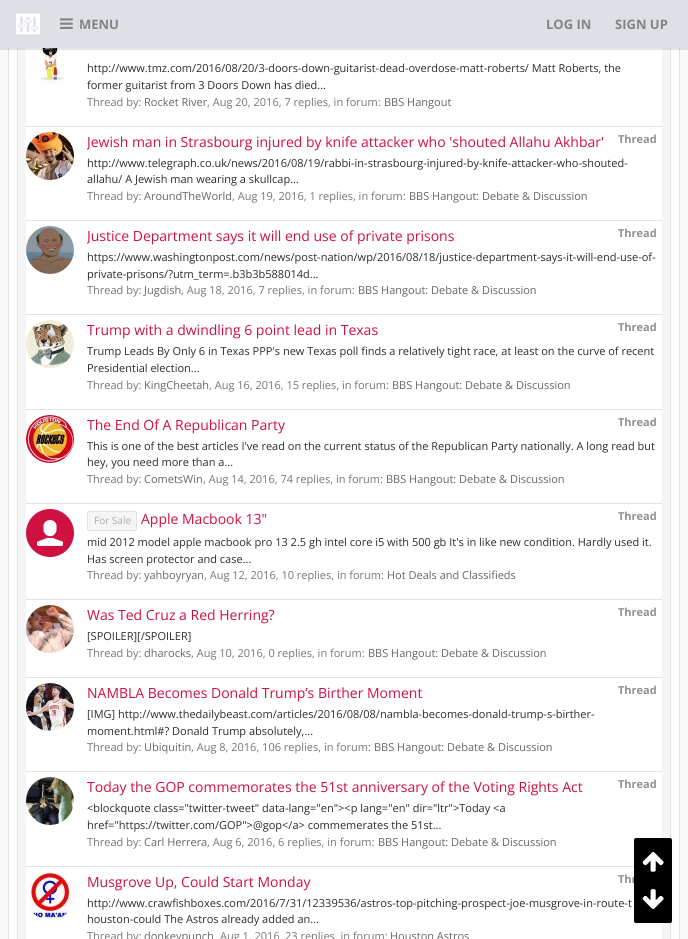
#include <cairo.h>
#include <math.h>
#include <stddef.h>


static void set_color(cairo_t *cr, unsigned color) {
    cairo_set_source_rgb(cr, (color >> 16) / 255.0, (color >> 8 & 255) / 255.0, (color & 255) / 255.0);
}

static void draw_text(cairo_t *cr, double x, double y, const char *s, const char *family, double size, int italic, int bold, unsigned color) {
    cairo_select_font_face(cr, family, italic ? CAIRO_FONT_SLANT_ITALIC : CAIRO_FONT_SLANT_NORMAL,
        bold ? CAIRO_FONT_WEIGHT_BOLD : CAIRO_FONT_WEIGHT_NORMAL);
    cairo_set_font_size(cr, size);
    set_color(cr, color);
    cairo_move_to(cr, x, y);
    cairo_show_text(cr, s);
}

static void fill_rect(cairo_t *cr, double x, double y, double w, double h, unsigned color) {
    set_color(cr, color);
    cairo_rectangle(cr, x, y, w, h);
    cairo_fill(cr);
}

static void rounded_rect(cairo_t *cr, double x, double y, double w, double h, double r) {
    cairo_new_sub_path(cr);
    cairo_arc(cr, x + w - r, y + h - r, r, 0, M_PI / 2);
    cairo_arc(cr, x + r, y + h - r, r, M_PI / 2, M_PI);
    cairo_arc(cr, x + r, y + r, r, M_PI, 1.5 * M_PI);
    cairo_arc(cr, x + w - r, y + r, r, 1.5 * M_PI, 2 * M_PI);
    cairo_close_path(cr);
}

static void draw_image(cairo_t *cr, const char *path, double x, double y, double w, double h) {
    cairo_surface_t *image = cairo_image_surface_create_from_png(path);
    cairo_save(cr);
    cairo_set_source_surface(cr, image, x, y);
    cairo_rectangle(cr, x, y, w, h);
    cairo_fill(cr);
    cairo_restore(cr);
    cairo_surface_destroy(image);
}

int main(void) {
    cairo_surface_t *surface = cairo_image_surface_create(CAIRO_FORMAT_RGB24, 688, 939);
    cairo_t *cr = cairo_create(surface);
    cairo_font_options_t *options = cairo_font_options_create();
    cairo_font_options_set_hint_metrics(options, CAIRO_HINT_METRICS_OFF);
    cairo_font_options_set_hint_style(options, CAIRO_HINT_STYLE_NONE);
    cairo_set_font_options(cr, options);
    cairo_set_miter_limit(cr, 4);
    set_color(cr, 0xF6F8F9);
    cairo_paint(cr);
    fill_rect(cr, 9, 48, 670, 891, 0xFFFFFF);
    set_color(cr, 0xE2E2E2);
    cairo_set_fill_rule(cr, CAIRO_FILL_RULE_EVEN_ODD);
    cairo_new_path(cr);
    cairo_move_to(cr, 8, -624);
    cairo_line_to(cr, 680, -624);
    cairo_line_to(cr, 680, 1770);
    cairo_curve_to(cr, 680, 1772, 678, 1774, 676, 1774);
    cairo_line_to(cr, 12, 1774);
    cairo_curve_to(cr, 10, 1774, 8, 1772, 8, 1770);
    cairo_close_path(cr);
    cairo_move_to(cr, 9, -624);
    cairo_line_to(cr, 679, -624);
    cairo_line_to(cr, 679, 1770);
    cairo_curve_to(cr, 679, 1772, 678, 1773, 676, 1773);
    cairo_line_to(cr, 12, 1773);
    cairo_curve_to(cr, 10, 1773, 9, 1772, 9, 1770);
    cairo_close_path(cr);
    cairo_fill(cr);
    fill_rect(cr, 18, 48, 652, 891, 0xF5F5F5);
    cairo_rectangle(cr, 17.5, -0.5, 653, 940);
    set_color(cr, 0xE2E2E2);
    cairo_set_line_width(cr, 1);
    cairo_stroke(cr);
    fill_rect(cr, 26, 48, 636, 78, 0xFFFFFF);
    draw_image(cr, "assets/img3.png", 26, 48, 48, 37);
    cairo_set_source_rgba(cr, 0, 0, 0, 0.1);
    cairo_rectangle(cr, 0, 48, 688, 2);
    cairo_fill(cr);
    fill_rect(cr, 0, 0, 688, 48, 0xDDE0E4);
    draw_image(cr, "assets/img1.png", 16, 13, 24, 22);
    draw_image(cr, "assets/img2.png", 60, 18, 13, 11);
    draw_text(cr, 79, 29, "MENU", "Open Sans", 13, 0, 1, 0x838485);
    draw_text(cr, 546, 29, "LOG IN", "Open Sans", 13, 0, 1, 0x838485);
    draw_text(cr, 615, 29, "SIGN UP", "Open Sans", 13, 0, 1, 0x838485);
    fill_rect(cr, 26, 126, 636, 1, 0xE2E2E2);
    draw_text(cr, 87, 72, "http://www.tmz.com/2016/08/20/3-doors-down-guitarist-dead-overdose-matt-roberts/ Matt Roberts, the", "Open Sans", 11, 0, 0, 0x2C2C2C);
    draw_text(cr, 87, 89, "former guitarist from 3 Doors Down has died...", "Open Sans", 11, 0, 0, 0x2C2C2C);
    draw_text(cr, 87, 106, "Thread by:", "Open Sans", 11, 0, 0, 0x767676);
    draw_text(cr, 144, 106, "Rocket River", "Open Sans", 11, 0, 0, 0x666666);
    draw_text(cr, 207, 106, ", Aug 20, 2016, 7 replies, in forum:", "Open Sans", 11, 0, 0, 0x767676);
    draw_text(cr, 384, 106, "BBS Hangout", "Open Sans", 11, 0, 0, 0x666666);
    fill_rect(cr, 26, 127, 636, 93, 0xFFFFFF);
    fill_rect(cr, 26, 220, 636, 1, 0xE2E2E2);
    draw_image(cr, "assets/img4.png", 26, 132, 48, 48);
    cairo_save(cr);
    cairo_set_fill_rule(cr, CAIRO_FILL_RULE_WINDING);
    cairo_rectangle(cr, 87, 132, 570, 20);
    cairo_clip(cr);
    draw_text(cr, 87, 147, "Jewish man in Strasbourg injured by knife attacker who 'shouted Allahu Akhbar'", "Open Sans", 14, 0, 0, 0xCE1141);
    cairo_restore(cr);
    draw_text(cr, 618, 143, "Thread", "Open Sans", 11, 0, 1, 0x909090);
    draw_text(cr, 87, 167, "http://www.telegraph.co.uk/news/2016/08/19/rabbi-in-strasbourg-injured-by-knife-attacker-who-shouted-", "Open Sans", 11, 0, 0, 0x2C2C2C);
    draw_text(cr, 87, 183, "allahu/ A Jewish man wearing a skullcap...", "Open Sans", 11, 0, 0, 0x2C2C2C);
    draw_text(cr, 87, 200, "Thread by:", "Open Sans", 11, 0, 0, 0x767676);
    draw_text(cr, 144, 200, "AroundTheWorld", "Open Sans", 11, 0, 0, 0x666666);
    draw_text(cr, 232, 200, ", Aug 19, 2016, 1 replies, in forum:", "Open Sans", 11, 0, 0, 0x767676);
    draw_text(cr, 409, 200, "BBS Hangout: Debate & Discussion", "Open Sans", 11, 0, 0, 0x666666);
    fill_rect(cr, 26, 221, 636, 93, 0xFFFFFF);
    fill_rect(cr, 26, 314, 636, 1, 0xE2E2E2);
    draw_image(cr, "assets/img5.png", 26, 226, 48, 48);
    cairo_save(cr);
    cairo_set_fill_rule(cr, CAIRO_FILL_RULE_WINDING);
    cairo_rectangle(cr, 87, 226, 570, 20);
    cairo_clip(cr);
    draw_text(cr, 87, 241, "Justice Department says it will end use of private prisons", "Open Sans", 14, 0, 0, 0xCE1141);
    cairo_restore(cr);
    draw_text(cr, 618, 237, "Thread", "Open Sans", 11, 0, 1, 0x909090);
    draw_text(cr, 87, 261, "https://www.washingtonpost.com/news/post-nation/wp/2016/08/18/justice-department-says-it-will-end-use-of-", "Open Sans", 11, 0, 0, 0x2C2C2C);
    draw_text(cr, 87, 278, "private-prisons/?utm_term=.b3b3b588014d...", "Open Sans", 11, 0, 0, 0x2C2C2C);
    draw_text(cr, 87, 294, "Thread by:", "Open Sans", 11, 0, 0, 0x767676);
    draw_text(cr, 144, 294, "Jugdish", "Open Sans", 11, 0, 0, 0x666666);
    draw_text(cr, 181, 294, ", Aug 18, 2016, 7 replies, in forum:", "Open Sans", 11, 0, 0, 0x767676);
    draw_text(cr, 358, 294, "BBS Hangout: Debate & Discussion", "Open Sans", 11, 0, 0, 0x666666);
    fill_rect(cr, 26, 315, 636, 94, 0xFFFFFF);
    fill_rect(cr, 26, 409, 636, 1, 0xE2E2E2);
    draw_image(cr, "assets/img6.png", 26, 320, 48, 48);
    draw_text(cr, 87, 335, "Trump with a dwindling 6 point lead in Texas", "Open Sans", 14, 0, 0, 0xCE1141);
    draw_text(cr, 618, 331, "Thread", "Open Sans", 11, 0, 1, 0x909090);
    draw_text(cr, 87, 355, "Trump Leads By Only 6 in Texas PPP's new Texas poll finds a relatively tight race, at least on the curve of recent", "Open Sans", 11, 0, 0, 0x2C2C2C);
    draw_text(cr, 87, 372, "Presidential election...", "Open Sans", 11, 0, 0, 0x2C2C2C);
    draw_text(cr, 87, 389, "Thread by:", "Open Sans", 11, 0, 0, 0x767676);
    draw_text(cr, 144, 389, "KingCheetah", "Open Sans", 11, 0, 0, 0x666666);
    draw_text(cr, 209, 389, ", Aug 16, 2016, 15 replies, in forum:", "Open Sans", 11, 0, 0, 0x767676);
    draw_text(cr, 392, 389, "BBS Hangout: Debate & Discussion", "Open Sans", 11, 0, 0, 0x666666);
    fill_rect(cr, 26, 410, 636, 93, 0xFFFFFF);
    fill_rect(cr, 26, 503, 636, 1, 0xE2E2E2);
    draw_image(cr, "assets/img7.png", 26, 415, 48, 48);
    draw_text(cr, 87, 430, "The End Of A Republican Party", "Open Sans", 14, 0, 0, 0xCE1141);
    draw_text(cr, 618, 426, "Thread", "Open Sans", 11, 0, 1, 0x909090);
    draw_text(cr, 87, 450, "This is one of the best articles I've read on the current status of the Republican Party nationally. A long read but", "Open Sans", 11, 0, 0, 0x2C2C2C);
    draw_text(cr, 87, 466, "hey, you need more than a...", "Open Sans", 11, 0, 0, 0x2C2C2C);
    draw_text(cr, 87, 483, "Thread by:", "Open Sans", 11, 0, 0, 0x767676);
    draw_text(cr, 144, 483, "CometsWin", "Open Sans", 11, 0, 0, 0x666666);
    draw_text(cr, 203, 483, ", Aug 14, 2016, 74 replies, in forum:", "Open Sans", 11, 0, 0, 0x767676);
    draw_text(cr, 386, 483, "BBS Hangout: Debate & Discussion", "Open Sans", 11, 0, 0, 0x666666);
    fill_rect(cr, 26, 504, 636, 95, 0xFFFFFF);
    fill_rect(cr, 26, 599, 636, 1, 0xE2E2E2);
    set_color(cr, 0xCE1141);
    cairo_new_path(cr);
    cairo_arc(cr, 50, 533, 24, 0, 2 * M_PI);
    cairo_fill(cr);
    draw_image(cr, "assets/img8.png", 37, 520, 26, 26);
    set_color(cr, 0xF5F5F5);
    rounded_rect(cr, 87.5, 511.5, 49, 19, 1.5);
    cairo_fill_preserve(cr);
    set_color(cr, 0xE2E2E2);
    cairo_stroke(cr);
    draw_text(cr, 94, 524, "For Sale", "Open Sans", 10, 0, 0, 0xAAAAAA);
    draw_text(cr, 141, 524, "Apple Macbook 13\"", "Open Sans", 14, 0, 0, 0xCE1141);
    draw_text(cr, 618, 520, "Thread", "Open Sans", 11, 0, 1, 0x909090);
    draw_text(cr, 87, 546, "mid 2012 model apple macbook pro 13 2.5 gh intel core i5 with 500 gb It's in like new condition. Hardly used it.", "Open Sans", 11, 0, 0, 0x2C2C2C);
    draw_text(cr, 87, 563, "Has screen protector and case...", "Open Sans", 11, 0, 0, 0x2C2C2C);
    draw_text(cr, 87, 579, "Thread by:", "Open Sans", 11, 0, 0, 0x767676);
    draw_text(cr, 144, 579, "yahboyryan", "Open Sans", 11, 0, 0, 0x666666);
    draw_text(cr, 204, 579, ", Aug 12, 2016, 10 replies, in forum:", "Open Sans", 11, 0, 0, 0x767676);
    draw_text(cr, 387, 579, "Hot Deals and Classifieds", "Open Sans", 11, 0, 0, 0x666666);
    fill_rect(cr, 26, 600, 636, 77, 0xFFFFFF);
    fill_rect(cr, 26, 677, 636, 1, 0xE2E2E2);
    draw_image(cr, "assets/img9.png", 26, 605, 48, 48);
    draw_text(cr, 87, 620, "Was Ted Cruz a Red Herring?", "Open Sans", 14, 0, 0, 0xCE1141);
    draw_text(cr, 618, 616, "Thread", "Open Sans", 11, 0, 1, 0x909090);
    draw_text(cr, 87, 640, "[SPOILER][/SPOILER]", "Open Sans", 11, 0, 0, 0x2C2C2C);
    draw_text(cr, 87, 657, "Thread by:", "Open Sans", 11, 0, 0, 0x767676);
    draw_text(cr, 144, 657, "dharocks", "Open Sans", 11, 0, 0, 0x666666);
    draw_text(cr, 191, 657, ", Aug 10, 2016, 0 replies, in forum:", "Open Sans", 11, 0, 0, 0x767676);
    draw_text(cr, 368, 657, "BBS Hangout: Debate & Discussion", "Open Sans", 11, 0, 0, 0x666666);
    fill_rect(cr, 26, 678, 636, 93, 0xFFFFFF);
    fill_rect(cr, 26, 771, 636, 1, 0xE2E2E2);
    draw_image(cr, "assets/img10.png", 26, 683, 48, 48);
    draw_text(cr, 87, 698, "NAMBLA Becomes Donald Trump’s Birther Moment", "Open Sans", 14, 0, 0, 0xCE1141);
    draw_text(cr, 618, 694, "Thread", "Open Sans", 11, 0, 1, 0x909090);
    draw_text(cr, 87, 718, "[IMG] http://www.thedailybeast.com/articles/2016/08/08/nambla-becomes-donald-trump-s-birther-", "Open Sans", 11, 0, 0, 0x2C2C2C);
    draw_text(cr, 87, 735, "moment.html#? Donald Trump absolutely,...", "Open Sans", 11, 0, 0, 0x2C2C2C);
    draw_text(cr, 87, 751, "Thread by:", "Open Sans", 11, 0, 0, 0x767676);
    draw_text(cr, 144, 751, "Ubiquitin", "Open Sans", 11, 0, 0, 0x666666);
    draw_text(cr, 191, 751, ", Aug 8, 2016, 106 replies, in forum:", "Open Sans", 11, 0, 0, 0x767676);
    draw_text(cr, 374, 751, "BBS Hangout: Debate & Discussion", "Open Sans", 11, 0, 0, 0x666666);
    fill_rect(cr, 26, 772, 636, 94, 0xFFFFFF);
    fill_rect(cr, 26, 866, 608, 1, 0xE2E2E2);
    draw_image(cr, "assets/img11.png", 26, 777, 48, 48);
    draw_text(cr, 87, 792, "Today the GOP commemorates the 51st anniversary of the Voting Rights Act", "Open Sans", 14, 0, 0, 0xCE1141);
    draw_text(cr, 618, 788, "Thread", "Open Sans", 11, 0, 1, 0x909090);
    draw_text(cr, 87, 812, "<blockquote class=\"twitter-tweet\" data-lang=\"en\"><p lang=\"en\" dir=\"ltr\">Today <a", "Open Sans", 11, 0, 0, 0x2C2C2C);
    draw_text(cr, 87, 829, "href=\"https://twitter.com/GOP\">@gop</a> commemerates the 51st...", "Open Sans", 11, 0, 0, 0x2C2C2C);
    draw_text(cr, 87, 846, "Thread by:", "Open Sans", 11, 0, 0, 0x767676);
    draw_text(cr, 144, 846, "Carl Herrera", "Open Sans", 11, 0, 0, 0x666666);
    draw_text(cr, 207, 846, ", Aug 6, 2016, 6 replies, in forum:", "Open Sans", 11, 0, 0, 0x767676);
    draw_text(cr, 378, 846, "BBS Hangout: Debate & Discussion", "Open Sans", 11, 0, 0, 0x666666);
    fill_rect(cr, 26, 867, 636, 72, 0xFFFFFF);
    draw_image(cr, "assets/img12.png", 26, 872, 48, 48);
    draw_text(cr, 87, 887, "Musgrove Up, Could Start Monday", "Open Sans", 14, 0, 0, 0xCE1141);
    draw_text(cr, 618, 883, "Thr", "Open Sans", 11, 0, 1, 0x909090);
    draw_text(cr, 87, 907, "http://www.crawfishboxes.com/2016/7/31/12339536/astros-top-pitching-prospect-joe-musgrove-in-route-t", "Open Sans", 11, 0, 0, 0x2C2C2C);
    draw_text(cr, 87, 923, "houston-could The Astros already added an...", "Open Sans", 11, 0, 0, 0x2C2C2C);
    draw_text(cr, 87, 940, "Thread by:", "Open Sans", 11, 0, 0, 0x767676);
    draw_text(cr, 144, 940, "donkeypunch", "Open Sans", 11, 0, 0, 0x666666);
    draw_text(cr, 220, 940, "Aug 1, 2016", "Open Sans", 11, 0, 0, 0x767676);
    draw_text(cr, 285, 940, "23 replies, in forum:", "Open Sans", 11, 0, 0, 0x767676);
    draw_text(cr, 390, 940, "Houston Astros", "Open Sans", 11, 0, 0, 0x666666);
    set_color(cr, 0x000000);
    rounded_rect(cr, 634, 838, 38, 85, 2);
    cairo_fill(cr);
    cairo_set_source_rgba(cr, 0, 0, 0, 0.2);
    cairo_set_fill_rule(cr, CAIRO_FILL_RULE_WINDING);
    cairo_new_path(cr);
    cairo_move_to(cr, 634, 919);
    cairo_curve_to(cr, 634, 924.5, 636, 923, 641.5, 923);
    cairo_line_to(cr, 664.5, 923);
    cairo_curve_to(cr, 670, 923, 672, 924.5, 672, 919);
    cairo_curve_to(cr, 672, 920, 671, 921, 670, 921);
    cairo_line_to(cr, 636, 921);
    cairo_curve_to(cr, 635, 921, 634, 920, 634, 919);
    cairo_close_path(cr);
    cairo_fill(cr);
    draw_image(cr, "assets/img13.png", 642, 852, 22, 20);
    draw_image(cr, "assets/img14.png", 642, 889, 22, 20);
    cairo_surface_write_to_png(surface, "output.png");
    cairo_font_options_destroy(options);
    cairo_destroy(cr);
    cairo_surface_destroy(surface);
    return 0;
}
